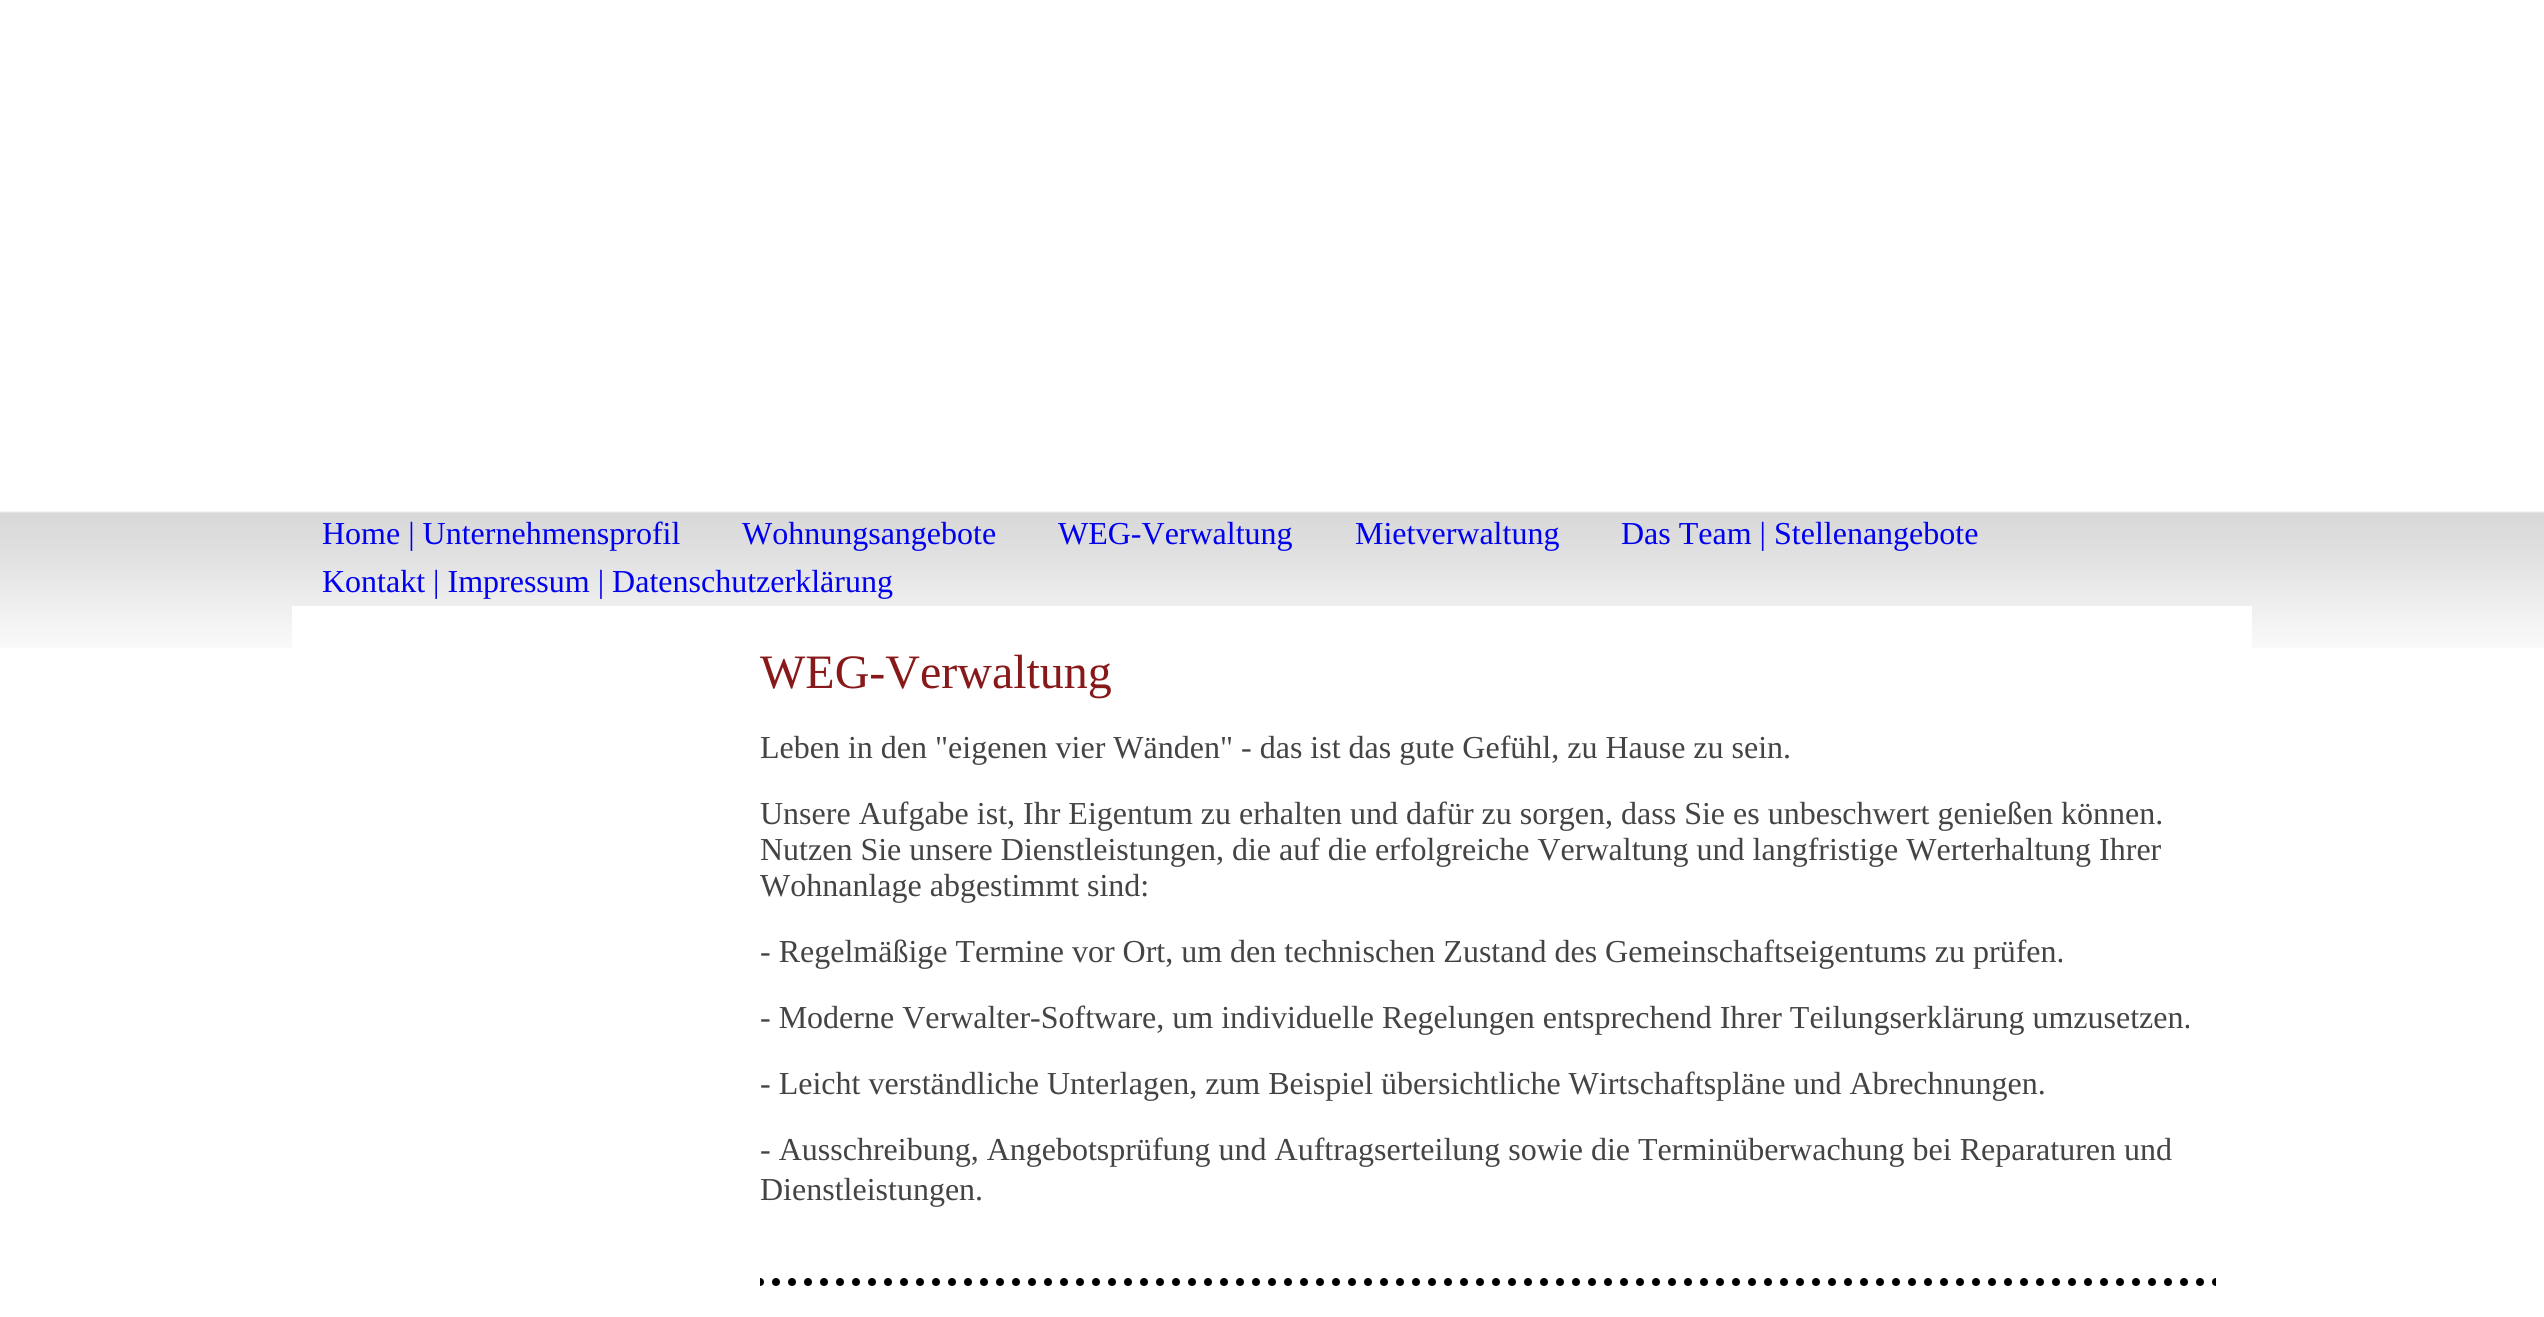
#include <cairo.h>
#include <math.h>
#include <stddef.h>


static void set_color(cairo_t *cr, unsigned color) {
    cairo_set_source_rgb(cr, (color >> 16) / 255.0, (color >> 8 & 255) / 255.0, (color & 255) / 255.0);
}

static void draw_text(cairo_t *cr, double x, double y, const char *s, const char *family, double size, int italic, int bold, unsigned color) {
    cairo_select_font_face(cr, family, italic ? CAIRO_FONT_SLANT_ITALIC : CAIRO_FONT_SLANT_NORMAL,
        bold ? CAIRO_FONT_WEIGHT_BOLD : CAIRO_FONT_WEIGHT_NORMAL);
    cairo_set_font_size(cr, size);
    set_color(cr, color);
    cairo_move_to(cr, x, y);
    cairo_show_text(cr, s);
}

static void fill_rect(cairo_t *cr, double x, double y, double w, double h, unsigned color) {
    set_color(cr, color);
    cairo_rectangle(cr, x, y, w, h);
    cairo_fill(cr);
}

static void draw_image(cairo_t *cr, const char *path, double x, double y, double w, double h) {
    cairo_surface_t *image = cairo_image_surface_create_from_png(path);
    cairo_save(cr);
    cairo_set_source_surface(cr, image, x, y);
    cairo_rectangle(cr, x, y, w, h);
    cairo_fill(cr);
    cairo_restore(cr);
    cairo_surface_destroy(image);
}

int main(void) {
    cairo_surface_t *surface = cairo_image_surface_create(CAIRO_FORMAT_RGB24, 2544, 1317);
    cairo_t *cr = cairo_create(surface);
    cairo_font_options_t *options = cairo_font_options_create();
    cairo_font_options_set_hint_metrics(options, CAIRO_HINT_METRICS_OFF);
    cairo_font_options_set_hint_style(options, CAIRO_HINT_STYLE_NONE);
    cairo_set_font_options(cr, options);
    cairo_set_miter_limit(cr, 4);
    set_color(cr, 0xFFFFFF);
    cairo_paint(cr);
    draw_image(cr, "assets/img1.png", 0, 511, 2544, 137);
    draw_text(cr, 322, 544, "Home | Unternehmensprofil", "Liberation Serif", 32, 0, 0, 0x0000EE);
    draw_text(cr, 742, 544, "Wohnungsangebote", "Liberation Serif", 32, 0, 0, 0x0000EE);
    draw_text(cr, 1058, 544, "WEG-Verwaltung", "Liberation Serif", 32, 0, 0, 0x0000EE);
    draw_text(cr, 1355, 544, "Mietverwaltung", "Liberation Serif", 32, 0, 0, 0x0000EE);
    draw_text(cr, 1621, 544, "Das Team | Stellenangebote", "Liberation Serif", 32, 0, 0, 0x0000EE);
    draw_text(cr, 322, 592, "Kontakt | Impressum | Datenschutzerklärung", "Liberation Serif", 32, 0, 0, 0x0000EE);
    fill_rect(cr, 292, 606, 1960, 42, 0xFFFFFF);
    draw_text(cr, 760, 688, "WEG-Verwaltung", "Liberation Serif", 48, 0, 0, 0x88191A);
    draw_text(cr, 760, 758, "Leben in den \"eigenen vier Wänden\" - das ist das gute Gefühl, zu Hause zu sein.", "Liberation Serif", 32, 0, 0, 0x444444);
    draw_text(cr, 760, 824, "Unsere Aufgabe ist, Ihr Eigentum zu erhalten und dafür zu sorgen, dass Sie es unbeschwert genießen können.", "Liberation Serif", 32, 0, 0, 0x444444);
    draw_text(cr, 760, 860, "Nutzen Sie unsere Dienstleistungen, die auf die erfolgreiche Verwaltung und langfristige Werterhaltung Ihrer", "Liberation Serif", 32, 0, 0, 0x444444);
    draw_text(cr, 760, 896, "Wohnanlage abgestimmt sind:", "Liberation Serif", 32, 0, 0, 0x444444);
    draw_text(cr, 760, 962, "- Regelmäßige Termine vor Ort, um den technischen Zustand des Gemeinschaftseigentums zu prüfen.", "Liberation Serif", 32, 0, 0, 0x444444);
    draw_text(cr, 760, 1028, "- Moderne Verwalter-Software, um individuelle Regelungen entsprechend Ihrer Teilungserklärung umzusetzen.", "Liberation Serif", 32, 0, 0, 0x444444);
    draw_text(cr, 760, 1094, "- Leicht verständliche Unterlagen, zum Beispiel übersichtliche Wirtschaftspläne und Abrechnungen.", "Liberation Serif", 32, 0, 0, 0x444444);
    draw_text(cr, 760, 1160, "- Ausschreibung, Angebotsprüfung und Auftragserteilung sowie die Terminüberwachung bei Reparaturen und", "Liberation Serif", 32, 0, 0, 0x444444);
    draw_text(cr, 760, 1200, "Dienstleistungen.", "Liberation Serif", 32, 0, 0, 0x444444);
    cairo_save(cr);
    cairo_rectangle(cr, 760, 1240, 1456, 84);
    cairo_clip(cr);
    cairo_new_path(cr);
    cairo_move_to(cr, 760, 1282);
    cairo_line_to(cr, 2216, 1282);
    set_color(cr, 0x000000);
    cairo_set_line_width(cr, 8);
    cairo_set_line_cap(cr, CAIRO_LINE_CAP_ROUND);
    cairo_set_dash(cr, (double[]){0, 16}, 2, 0);
    cairo_stroke(cr);
    cairo_restore(cr);
    cairo_surface_write_to_png(surface, "output.png");
    cairo_font_options_destroy(options);
    cairo_destroy(cr);
    cairo_surface_destroy(surface);
    return 0;
}
